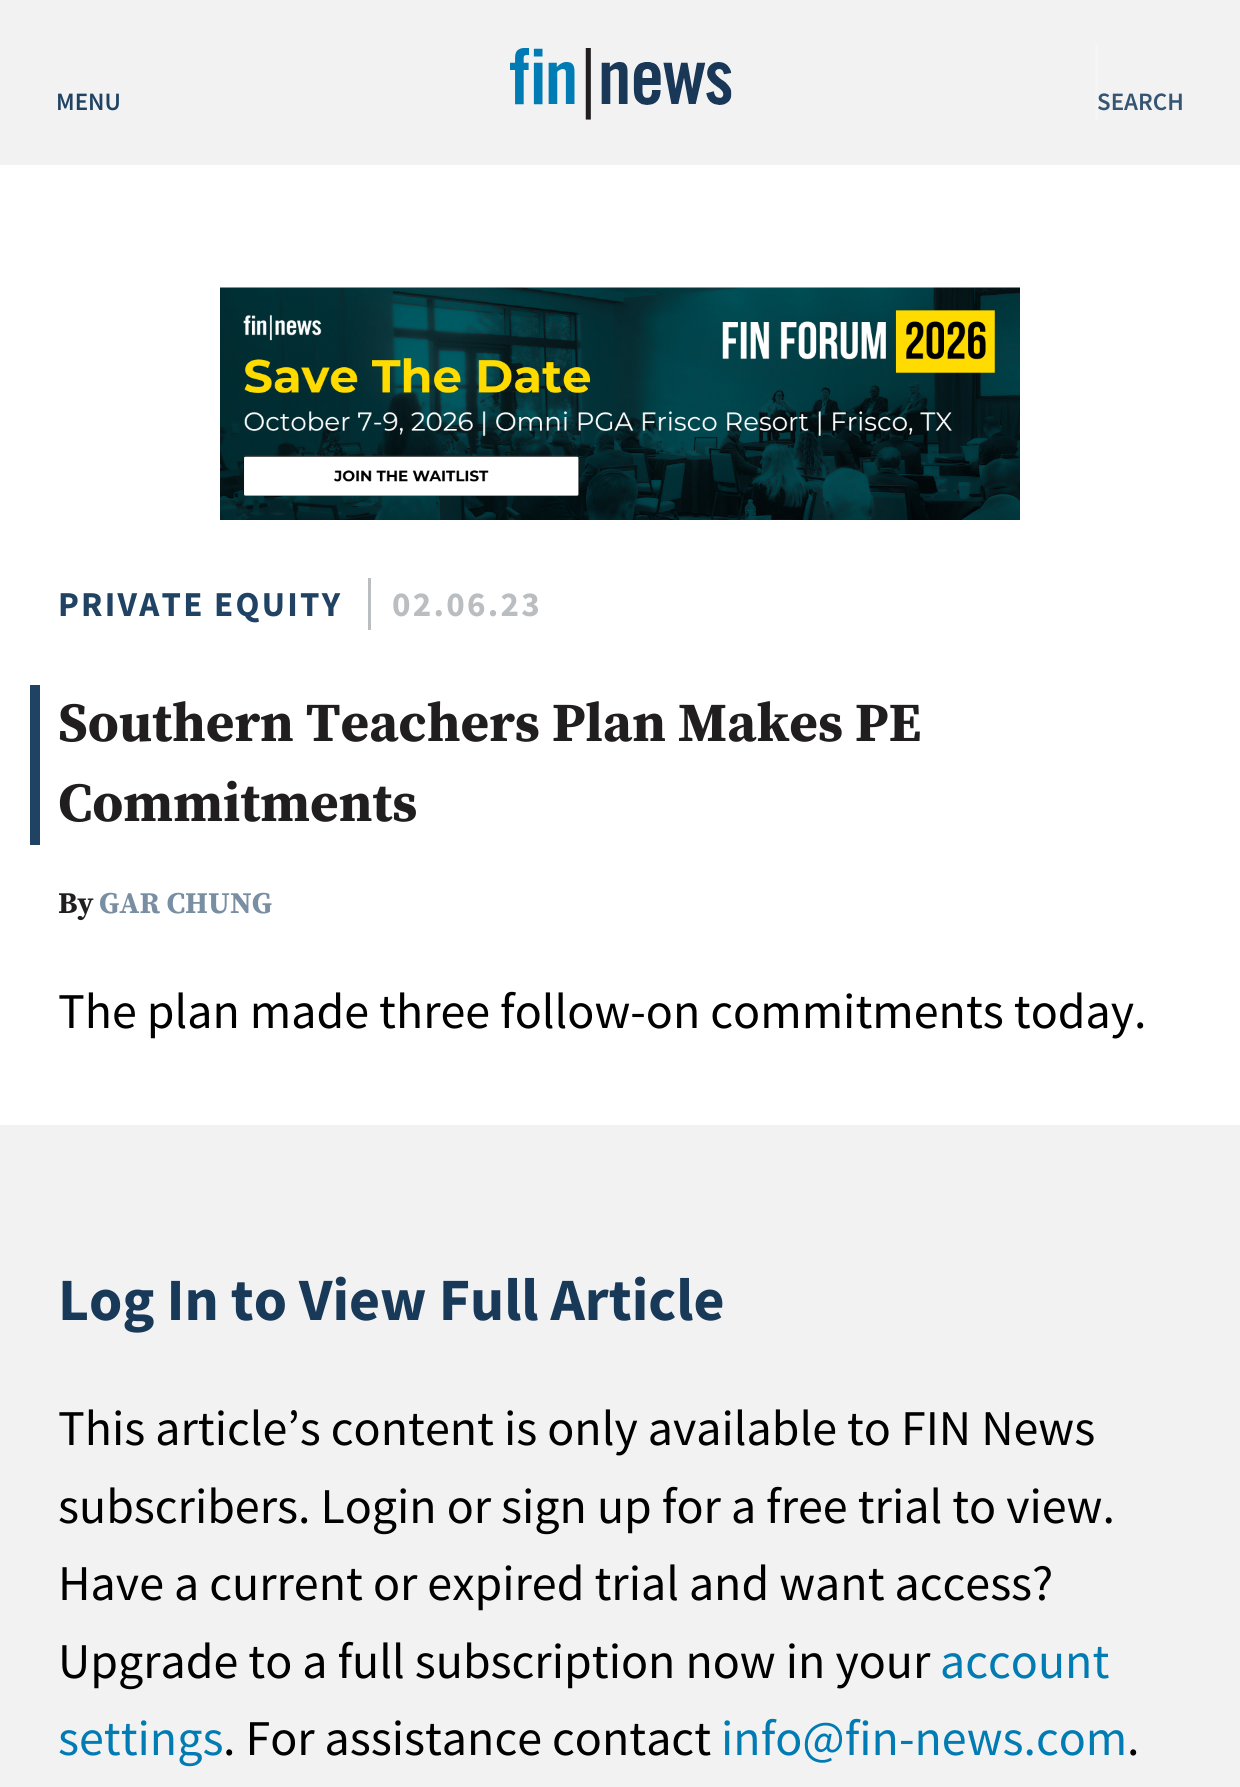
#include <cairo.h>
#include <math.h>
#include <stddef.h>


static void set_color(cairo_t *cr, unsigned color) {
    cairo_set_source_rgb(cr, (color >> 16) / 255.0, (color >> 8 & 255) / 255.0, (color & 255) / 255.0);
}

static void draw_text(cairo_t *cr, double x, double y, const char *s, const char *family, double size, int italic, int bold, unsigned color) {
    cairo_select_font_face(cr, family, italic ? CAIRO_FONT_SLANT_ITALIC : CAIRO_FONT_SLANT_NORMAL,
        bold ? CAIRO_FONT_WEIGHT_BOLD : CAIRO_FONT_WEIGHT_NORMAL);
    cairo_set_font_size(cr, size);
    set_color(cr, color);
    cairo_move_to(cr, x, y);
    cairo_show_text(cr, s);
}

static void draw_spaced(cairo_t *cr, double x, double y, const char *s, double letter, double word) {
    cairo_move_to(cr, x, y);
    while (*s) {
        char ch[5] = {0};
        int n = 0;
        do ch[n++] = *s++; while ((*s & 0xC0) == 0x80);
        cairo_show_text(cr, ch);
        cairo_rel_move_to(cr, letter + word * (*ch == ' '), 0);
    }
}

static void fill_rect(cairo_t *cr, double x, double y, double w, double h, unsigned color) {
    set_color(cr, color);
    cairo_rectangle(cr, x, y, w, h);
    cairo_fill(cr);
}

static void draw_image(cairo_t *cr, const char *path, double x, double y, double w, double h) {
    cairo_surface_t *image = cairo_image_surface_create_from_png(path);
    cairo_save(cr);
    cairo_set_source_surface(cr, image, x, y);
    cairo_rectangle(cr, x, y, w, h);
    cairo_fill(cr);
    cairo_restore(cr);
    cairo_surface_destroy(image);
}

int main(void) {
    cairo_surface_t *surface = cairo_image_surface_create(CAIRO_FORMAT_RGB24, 1240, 1787);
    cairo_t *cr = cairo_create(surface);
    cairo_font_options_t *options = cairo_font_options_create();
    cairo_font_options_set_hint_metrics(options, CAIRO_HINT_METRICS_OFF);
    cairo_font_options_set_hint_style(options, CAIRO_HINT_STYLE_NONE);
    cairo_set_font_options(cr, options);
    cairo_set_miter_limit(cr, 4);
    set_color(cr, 0xFFFFFF);
    cairo_paint(cr);
    fill_rect(cr, 0, 0, 1240, 165, 0xF2F2F2);
    draw_text(cr, 56, 110, "MENU", "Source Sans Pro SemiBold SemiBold", 25, 0, 0, 0x204364);
    draw_image(cr, "assets/img1.png", 510, 48, 222, 72);
    fill_rect(cr, 1095, 45, 3, 75, 0xF5F5F5);
    draw_text(cr, 1097, 110, "SEARCH", "Source Sans Pro SemiBold SemiBold", 25, 0, 0, 0x355572);
    draw_image(cr, "assets/img2.png", 220, 287, 800, 233);
    cairo_select_font_face(cr, "Source Sans Pro", CAIRO_FONT_SLANT_NORMAL, CAIRO_FONT_WEIGHT_BOLD);
    cairo_set_font_size(cr, 35);
    set_color(cr, 0x204364);
    draw_spaced(cr, 58, 616, "PRIVATE EQUITY", 2.25, 0);
    fill_rect(cr, 368, 578, 3, 52, 0xBABEC1);
    draw_spaced(cr, 392, 616, "02.06.23", 2.25, 0);
    fill_rect(cr, 30, 685, 10, 160, 0x204364);
    draw_text(cr, 58, 741, "Southern Teachers Plan Makes PE", "Source Serif Pro", 55, 0, 1, 0x211E1F);
    draw_text(cr, 58, 821, "Commitments", "Source Serif Pro", 55, 0, 1, 0x211E1F);
    draw_text(cr, 58, 913, "By", "Source Serif Pro", 30, 0, 1, 0x211E1F);
    draw_text(cr, 99, 913, "GAR CHUNG", "Source Serif Pro", 30, 0, 1, 0x798EA2);
    draw_text(cr, 58, 1028, "The plan made three follow-on commitments today.", "Source Sans Pro", 50, 0, 0, 0x000000);
    fill_rect(cr, 0, 1125, 1240, 662, 0xF2F2F2);
    draw_text(cr, 58, 1320, "Log In to View Full Article", "Source Sans Pro", 60, 0, 1, 0x193958);
    draw_text(cr, 58, 1445, "This article’s content is only available to FIN News", "Source Sans Pro", 50, 0, 0, 0x000000);
    draw_text(cr, 58, 1523, "subscribers. Login or sign up for a free trial to view.", "Source Sans Pro", 50, 0, 0, 0x000000);
    draw_text(cr, 58, 1600, "Have a current or expired trial and want access?", "Source Sans Pro", 50, 0, 0, 0x000000);
    draw_text(cr, 58, 1678, "Upgrade to a full subscription now in your", "Source Sans Pro", 50, 0, 0, 0x000000);
    draw_text(cr, 940, 1678, "account", "Source Sans Pro", 50, 0, 0, 0x007BB3);
    draw_text(cr, 58, 1755, "settings", "Source Sans Pro", 50, 0, 0, 0x007BB3);
    draw_text(cr, 223, 1755, ". For assistance contact", "Source Sans Pro", 50, 0, 0, 0x000000);
    draw_text(cr, 721, 1755, "info@fin-news.com", "Source Sans Pro", 50, 0, 0, 0x007BB3);
    draw_text(cr, 1127, 1755, ".", "Source Sans Pro", 50, 0, 0, 0x000000);
    cairo_surface_write_to_png(surface, "output.png");
    cairo_font_options_destroy(options);
    cairo_destroy(cr);
    cairo_surface_destroy(surface);
    return 0;
}
